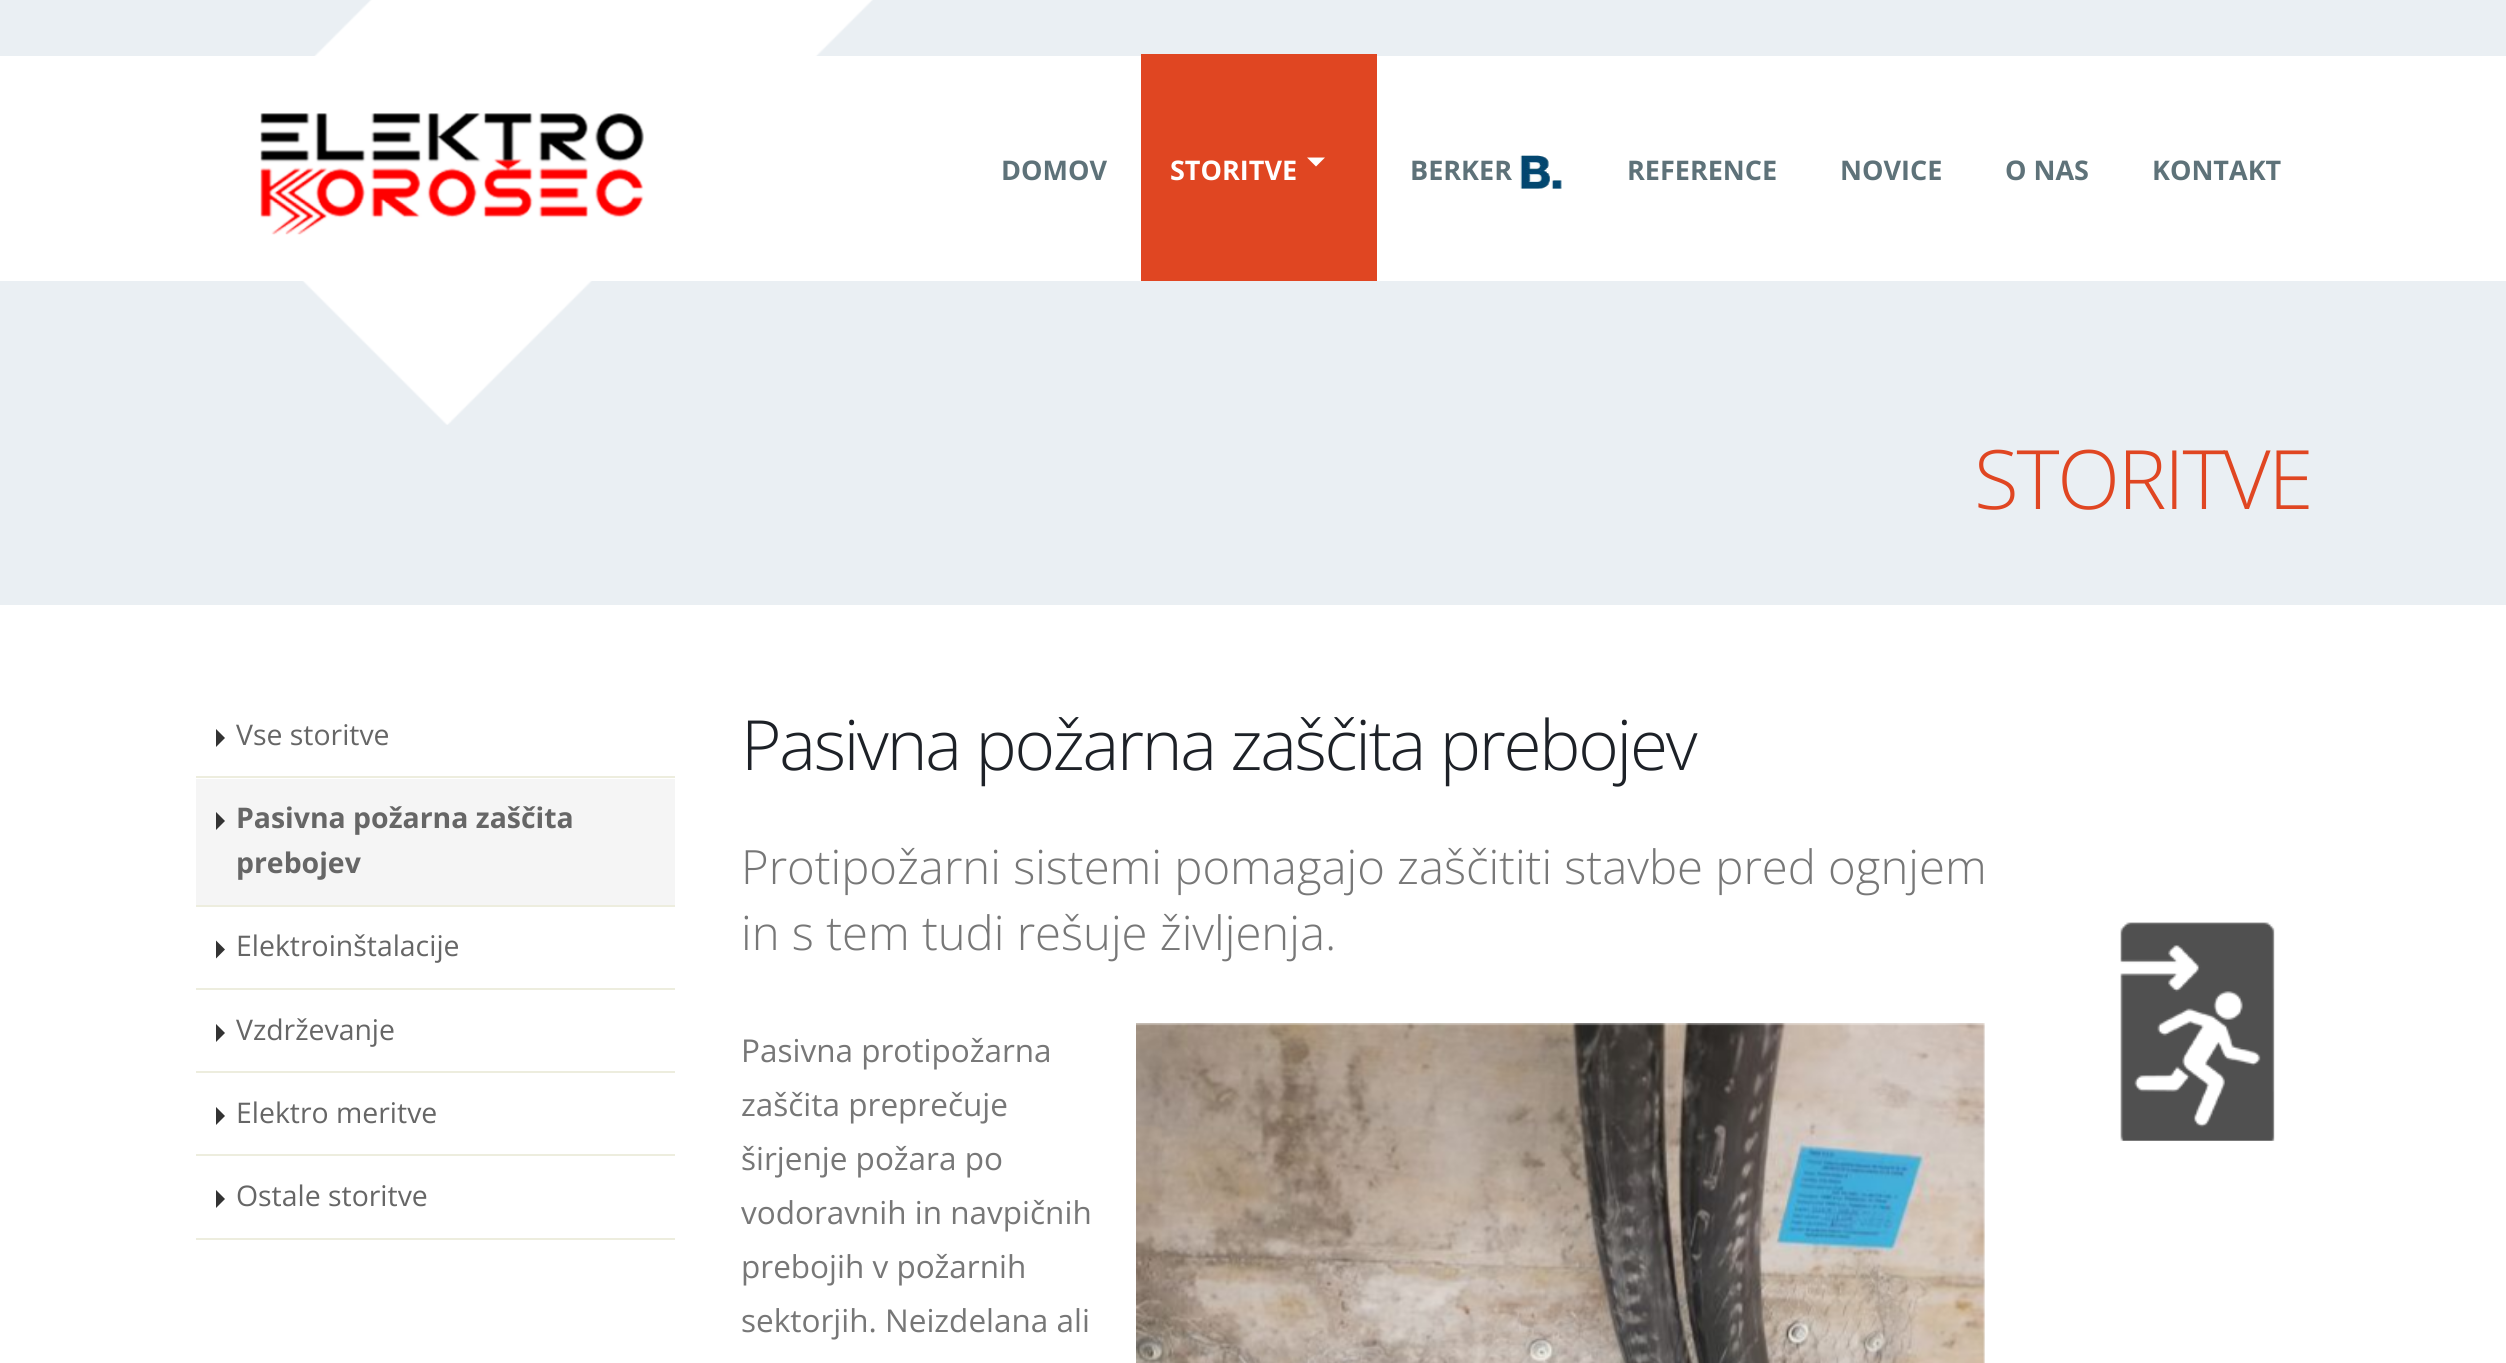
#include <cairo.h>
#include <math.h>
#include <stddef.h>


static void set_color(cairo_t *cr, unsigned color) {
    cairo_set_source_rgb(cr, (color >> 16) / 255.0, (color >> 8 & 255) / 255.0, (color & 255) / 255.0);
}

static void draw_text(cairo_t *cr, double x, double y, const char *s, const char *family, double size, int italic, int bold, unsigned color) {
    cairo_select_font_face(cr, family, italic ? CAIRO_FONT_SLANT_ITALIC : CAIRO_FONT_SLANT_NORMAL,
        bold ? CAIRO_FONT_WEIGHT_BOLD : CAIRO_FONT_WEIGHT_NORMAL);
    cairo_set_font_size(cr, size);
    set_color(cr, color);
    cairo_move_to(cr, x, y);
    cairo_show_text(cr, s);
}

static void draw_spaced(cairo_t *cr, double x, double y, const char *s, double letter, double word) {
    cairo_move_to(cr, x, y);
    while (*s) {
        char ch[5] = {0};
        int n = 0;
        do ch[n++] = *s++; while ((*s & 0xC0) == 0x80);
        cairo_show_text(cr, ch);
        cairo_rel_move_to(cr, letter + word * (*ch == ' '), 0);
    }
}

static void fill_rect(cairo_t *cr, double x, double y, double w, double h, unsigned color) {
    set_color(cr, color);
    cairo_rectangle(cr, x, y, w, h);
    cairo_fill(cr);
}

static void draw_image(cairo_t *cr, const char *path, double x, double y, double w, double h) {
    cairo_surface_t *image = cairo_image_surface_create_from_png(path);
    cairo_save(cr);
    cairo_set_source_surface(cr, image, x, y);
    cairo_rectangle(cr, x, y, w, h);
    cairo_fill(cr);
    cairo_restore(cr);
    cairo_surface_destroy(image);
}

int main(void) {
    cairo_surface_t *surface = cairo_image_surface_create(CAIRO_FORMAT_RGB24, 2506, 1363);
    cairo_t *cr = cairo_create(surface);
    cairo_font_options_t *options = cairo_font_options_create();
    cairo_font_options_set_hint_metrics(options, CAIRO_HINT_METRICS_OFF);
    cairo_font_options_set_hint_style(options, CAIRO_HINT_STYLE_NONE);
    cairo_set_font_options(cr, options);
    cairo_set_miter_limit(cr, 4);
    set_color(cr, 0xFFFFFF);
    cairo_paint(cr);
    fill_rect(cr, 0, 0, 2506, 605, 0xEAEFF3);
    fill_rect(cr, 0, 56, 2506, 225, 0xFFFFFF);
    draw_image(cr, "assets/img1.png", 260, 0, 613, 425);
    draw_text(cr, 1001, 180, "DOMOV", "Open Sans", 27, 0, 1, 0x5E7279);
    fill_rect(cr, 1141, 54, 236, 227, 0xE04622);
    draw_text(cr, 1170, 180, "STORITVE", "Open Sans", 27, 0, 1, 0xFFFFFF);
    cairo_new_path(cr);
    cairo_move_to(cr, 1307, 157.5);
    cairo_line_to(cr, 1325, 157.5);
    cairo_line_to(cr, 1316, 166.5);
    cairo_close_path(cr);
    cairo_fill(cr);
    draw_text(cr, 1410, 180, "BERKER", "Open Sans", 27, 0, 1, 0x5E7279);
    draw_image(cr, "assets/img2.png", 1520, 155, 42, 34);
    draw_text(cr, 1627, 180, "REFERENCE", "Open Sans", 27, 0, 1, 0x5E7279);
    draw_text(cr, 1840, 180, "NOVICE", "Open Sans", 27, 0, 1, 0x5E7279);
    draw_text(cr, 2005, 180, "O NAS", "Open Sans", 27, 0, 1, 0x5E7279);
    draw_text(cr, 2152, 180, "KONTAKT", "Open Sans", 27, 0, 1, 0x5E7279);
    cairo_select_font_face(cr, "Open Sans Light", CAIRO_FONT_SLANT_NORMAL, CAIRO_FONT_WEIGHT_NORMAL);
    cairo_set_font_size(cr, 82);
    set_color(cr, 0xE04622);
    draw_spaced(cr, 1974, 509, "STORITVE", -2.25, 0);
    fill_rect(cr, 196, 776, 479, 2, 0xEDEDDE);
    set_color(cr, 0x333333);
    cairo_new_path(cr);
    cairo_move_to(cr, 216, 747);
    cairo_line_to(cr, 216, 729);
    cairo_line_to(cr, 225, 738);
    cairo_close_path(cr);
    cairo_fill(cr);
    draw_text(cr, 236, 745, "Vse storitve", "Open Sans", 28.4, 0, 0, 0x666666);
    fill_rect(cr, 196, 779, 479, 126, 0xF5F5F5);
    fill_rect(cr, 196, 905, 479, 2, 0xEDEDDE);
    set_color(cr, 0x333333);
    cairo_new_path(cr);
    cairo_move_to(cr, 216, 830);
    cairo_line_to(cr, 216, 812);
    cairo_line_to(cr, 225, 821);
    cairo_close_path(cr);
    cairo_fill(cr);
    draw_text(cr, 236, 828, "Pasivna požarna zaščita", "Open Sans", 28.4, 0, 1, 0x666666);
    draw_text(cr, 236, 873, "prebojev", "Open Sans", 28.4, 0, 1, 0x666666);
    fill_rect(cr, 196, 988, 479, 2, 0xEDEDDE);
    set_color(cr, 0x333333);
    cairo_new_path(cr);
    cairo_move_to(cr, 216, 958.5);
    cairo_line_to(cr, 216, 940.5);
    cairo_line_to(cr, 225, 949.5);
    cairo_close_path(cr);
    cairo_fill(cr);
    draw_text(cr, 236, 956, "Elektroinštalacije", "Open Sans", 28.4, 0, 0, 0x666666);
    fill_rect(cr, 196, 1071, 479, 2, 0xEDEDDE);
    set_color(cr, 0x333333);
    cairo_new_path(cr);
    cairo_move_to(cr, 216, 1042);
    cairo_line_to(cr, 216, 1024);
    cairo_line_to(cr, 225, 1033);
    cairo_close_path(cr);
    cairo_fill(cr);
    draw_text(cr, 236, 1040, "Vzdrževanje", "Open Sans", 28.4, 0, 0, 0x666666);
    fill_rect(cr, 196, 1154, 479, 2, 0xEDEDDE);
    set_color(cr, 0x333333);
    cairo_new_path(cr);
    cairo_move_to(cr, 216, 1125);
    cairo_line_to(cr, 216, 1107);
    cairo_line_to(cr, 225, 1116);
    cairo_close_path(cr);
    cairo_fill(cr);
    draw_text(cr, 236, 1123, "Elektro meritve", "Open Sans", 28.4, 0, 0, 0x666666);
    fill_rect(cr, 196, 1238, 479, 2, 0xEDEDDE);
    set_color(cr, 0x333333);
    cairo_new_path(cr);
    cairo_move_to(cr, 216, 1208);
    cairo_line_to(cr, 216, 1190);
    cairo_line_to(cr, 225, 1199);
    cairo_close_path(cr);
    cairo_fill(cr);
    draw_text(cr, 236, 1206, "Ostale storitve", "Open Sans", 28.4, 0, 0, 0x666666);
    cairo_select_font_face(cr, "Open Sans Light", CAIRO_FONT_SLANT_NORMAL, CAIRO_FONT_WEIGHT_NORMAL);
    cairo_set_font_size(cr, 69.25);
    set_color(cr, 0x1D2127);
    draw_spaced(cr, 741, 770, "Pasivna požarna zaščita prebojev", -2.25, 0);
    draw_text(cr, 741, 884, "Protipožarni sistemi pomagajo zaščititi stavbe pred ognjem", "Open Sans Light", 47.25, 0, 0, 0x777777);
    draw_text(cr, 741, 950, "in s tem tudi rešuje življenja.", "Open Sans Light", 47.25, 0, 0, 0x777777);
    draw_text(cr, 741, 1062, "Pasivna protipožarna", "Open Sans", 31.5, 0, 0, 0x777777);
    draw_text(cr, 741, 1116, "zaščita preprečuje", "Open Sans", 31.5, 0, 0, 0x777777);
    draw_text(cr, 741, 1170, "širjenje požara po", "Open Sans", 31.5, 0, 0, 0x777777);
    draw_text(cr, 741, 1224, "vodoravnih in navpičnih", "Open Sans", 31.5, 0, 0, 0x777777);
    draw_text(cr, 741, 1278, "prebojih v požarnih", "Open Sans", 31.5, 0, 0, 0x777777);
    draw_text(cr, 741, 1332, "sektorjih. Neizdelana ali", "Open Sans", 31.5, 0, 0, 0x777777);
    draw_image(cr, "assets/img3.png", 1136, 1023, 849, 340);
    draw_image(cr, "assets/img4.png", 2120, 922, 155, 219);
    cairo_surface_write_to_png(surface, "output.png");
    cairo_font_options_destroy(options);
    cairo_destroy(cr);
    cairo_surface_destroy(surface);
    return 0;
}
